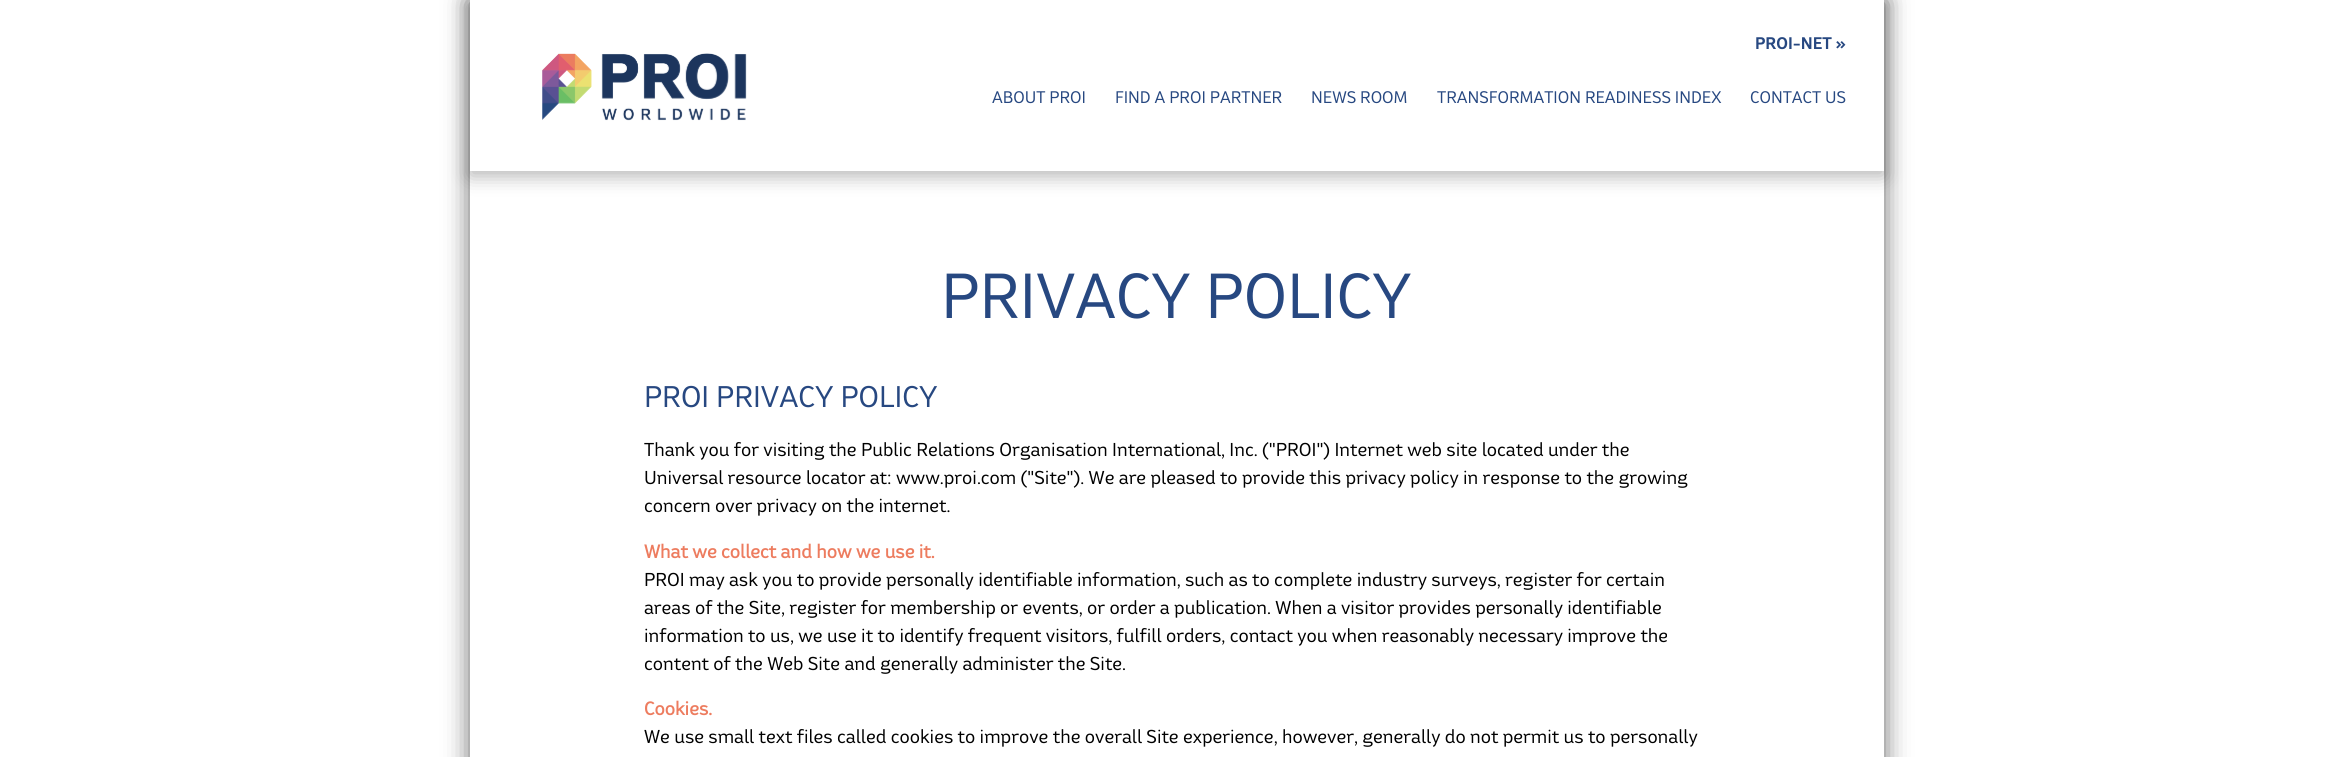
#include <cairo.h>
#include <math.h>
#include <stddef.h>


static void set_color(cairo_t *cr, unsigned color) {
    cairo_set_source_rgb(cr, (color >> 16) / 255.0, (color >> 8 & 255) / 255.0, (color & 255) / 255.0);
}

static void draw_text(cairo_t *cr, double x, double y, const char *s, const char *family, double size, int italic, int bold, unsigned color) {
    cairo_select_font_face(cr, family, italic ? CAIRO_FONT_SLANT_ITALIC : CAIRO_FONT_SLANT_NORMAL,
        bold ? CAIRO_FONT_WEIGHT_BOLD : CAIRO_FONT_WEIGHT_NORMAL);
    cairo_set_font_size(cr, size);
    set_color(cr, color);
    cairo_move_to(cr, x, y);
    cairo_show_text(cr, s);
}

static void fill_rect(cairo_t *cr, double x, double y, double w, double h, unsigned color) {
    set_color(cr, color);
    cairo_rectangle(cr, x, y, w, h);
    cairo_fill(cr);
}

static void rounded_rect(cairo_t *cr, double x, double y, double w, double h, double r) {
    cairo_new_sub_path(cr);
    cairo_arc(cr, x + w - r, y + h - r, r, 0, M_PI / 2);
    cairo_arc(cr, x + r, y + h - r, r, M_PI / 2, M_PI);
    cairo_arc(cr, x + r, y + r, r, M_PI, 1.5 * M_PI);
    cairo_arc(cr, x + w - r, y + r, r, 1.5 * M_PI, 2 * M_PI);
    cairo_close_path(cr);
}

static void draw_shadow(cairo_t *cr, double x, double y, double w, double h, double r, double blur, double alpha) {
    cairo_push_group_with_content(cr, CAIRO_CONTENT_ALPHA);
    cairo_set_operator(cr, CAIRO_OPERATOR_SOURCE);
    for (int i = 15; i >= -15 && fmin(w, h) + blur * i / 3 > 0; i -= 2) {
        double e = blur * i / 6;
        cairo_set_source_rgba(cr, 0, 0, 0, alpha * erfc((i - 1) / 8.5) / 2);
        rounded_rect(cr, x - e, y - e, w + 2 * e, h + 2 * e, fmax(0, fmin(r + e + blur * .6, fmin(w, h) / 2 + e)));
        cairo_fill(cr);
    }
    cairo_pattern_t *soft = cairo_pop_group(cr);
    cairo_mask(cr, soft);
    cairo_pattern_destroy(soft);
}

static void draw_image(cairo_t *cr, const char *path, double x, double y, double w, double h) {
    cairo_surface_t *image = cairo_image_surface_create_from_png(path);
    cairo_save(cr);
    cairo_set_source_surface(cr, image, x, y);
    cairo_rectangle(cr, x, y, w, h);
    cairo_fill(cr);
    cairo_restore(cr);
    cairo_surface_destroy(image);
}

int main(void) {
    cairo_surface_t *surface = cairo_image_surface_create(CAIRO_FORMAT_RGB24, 2352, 757);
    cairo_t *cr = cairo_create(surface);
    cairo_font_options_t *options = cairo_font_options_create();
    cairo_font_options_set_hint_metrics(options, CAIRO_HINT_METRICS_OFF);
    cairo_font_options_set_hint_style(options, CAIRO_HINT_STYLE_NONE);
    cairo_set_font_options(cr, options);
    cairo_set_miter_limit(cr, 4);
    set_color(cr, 0xFFFFFF);
    cairo_paint(cr);
    set_color(cr, 0x666666);
    draw_shadow(cr, 470, 0, 1414, 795, 0, 12.5, 1);
    fill_rect(cr, 470, 171, 1414, 586, 0xFFFFFF);
    set_color(cr, 0x000000);
    draw_shadow(cr, 470, 5, 1414, 171, 0, 9.5, 0.3);
    fill_rect(cr, 470, 0, 1414, 171, 0xFFFFFF);
    draw_text(cr, 1755, 49, "PROI-NET »", "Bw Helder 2", 15.75, 0, 1, 0x274881);
    draw_image(cr, "assets/img1.png", 542, 53, 205, 68);
    draw_text(cr, 992, 103, "ABOUT PROI", "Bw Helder", 15.75, 0, 0, 0x274881);
    draw_text(cr, 1115, 103, "FIND A PROI PARTNER", "Bw Helder", 15.75, 0, 0, 0x274881);
    draw_text(cr, 1311, 103, "NEWS ROOM", "Bw Helder", 15.75, 0, 0, 0x274881);
    draw_text(cr, 1437, 103, "TRANSFORMATION READINESS INDEX", "Bw Helder", 15.75, 0, 0, 0x274881);
    draw_text(cr, 1750, 103, "CONTACT US", "Bw Helder", 15.75, 0, 0, 0x274881);
    draw_text(cr, 941, 318, "PRIVACY POLICY", "Bw Helder", 59.5, 0, 0, 0x274881);
    draw_text(cr, 644, 407, "PROI PRIVACY POLICY", "Bw Helder", 28, 0, 0, 0x274881);
    draw_text(cr, 644, 456, "Thank you for visiting the Public Relations Organisation International, Inc. (\"PROI\") Internet web site located under the", "Bw Helder", 17.5, 0, 0, 0x000000);
    draw_text(cr, 644, 484, "Universal resource locator at: www.proi.com (\"Site\"). We are pleased to provide this privacy policy in response to the growing", "Bw Helder", 17.5, 0, 0, 0x000000);
    draw_text(cr, 644, 512, "concern over privacy on the internet.", "Bw Helder", 17.5, 0, 0, 0x000000);
    draw_text(cr, 644, 558, "What we collect and how we use it.", "Bw Helder", 17.5, 0, 1, 0xED7C5F);
    draw_text(cr, 644, 586, "PROI may ask you to provide personally identifiable information, such as to complete industry surveys, register for certain", "Bw Helder", 17.5, 0, 0, 0x000000);
    draw_text(cr, 644, 614, "areas of the Site, register for membership or events, or order a publication. When a visitor provides personally identifiable", "Bw Helder", 17.5, 0, 0, 0x000000);
    draw_text(cr, 644, 642, "information to us, we use it to identify frequent visitors, fulfill orders, contact you when reasonably necessary improve the", "Bw Helder", 17.5, 0, 0, 0x000000);
    draw_text(cr, 644, 670, "content of the Web Site and generally administer the Site.", "Bw Helder", 17.5, 0, 0, 0x000000);
    draw_text(cr, 644, 715, "Cookies.", "Bw Helder", 17.5, 0, 1, 0xED7C5F);
    draw_text(cr, 644, 743, "We use small text files called cookies to improve the overall Site experience, however, generally do not permit us to personally", "Bw Helder", 17.5, 0, 0, 0x000000);
    cairo_surface_write_to_png(surface, "output.png");
    cairo_font_options_destroy(options);
    cairo_destroy(cr);
    cairo_surface_destroy(surface);
    return 0;
}
